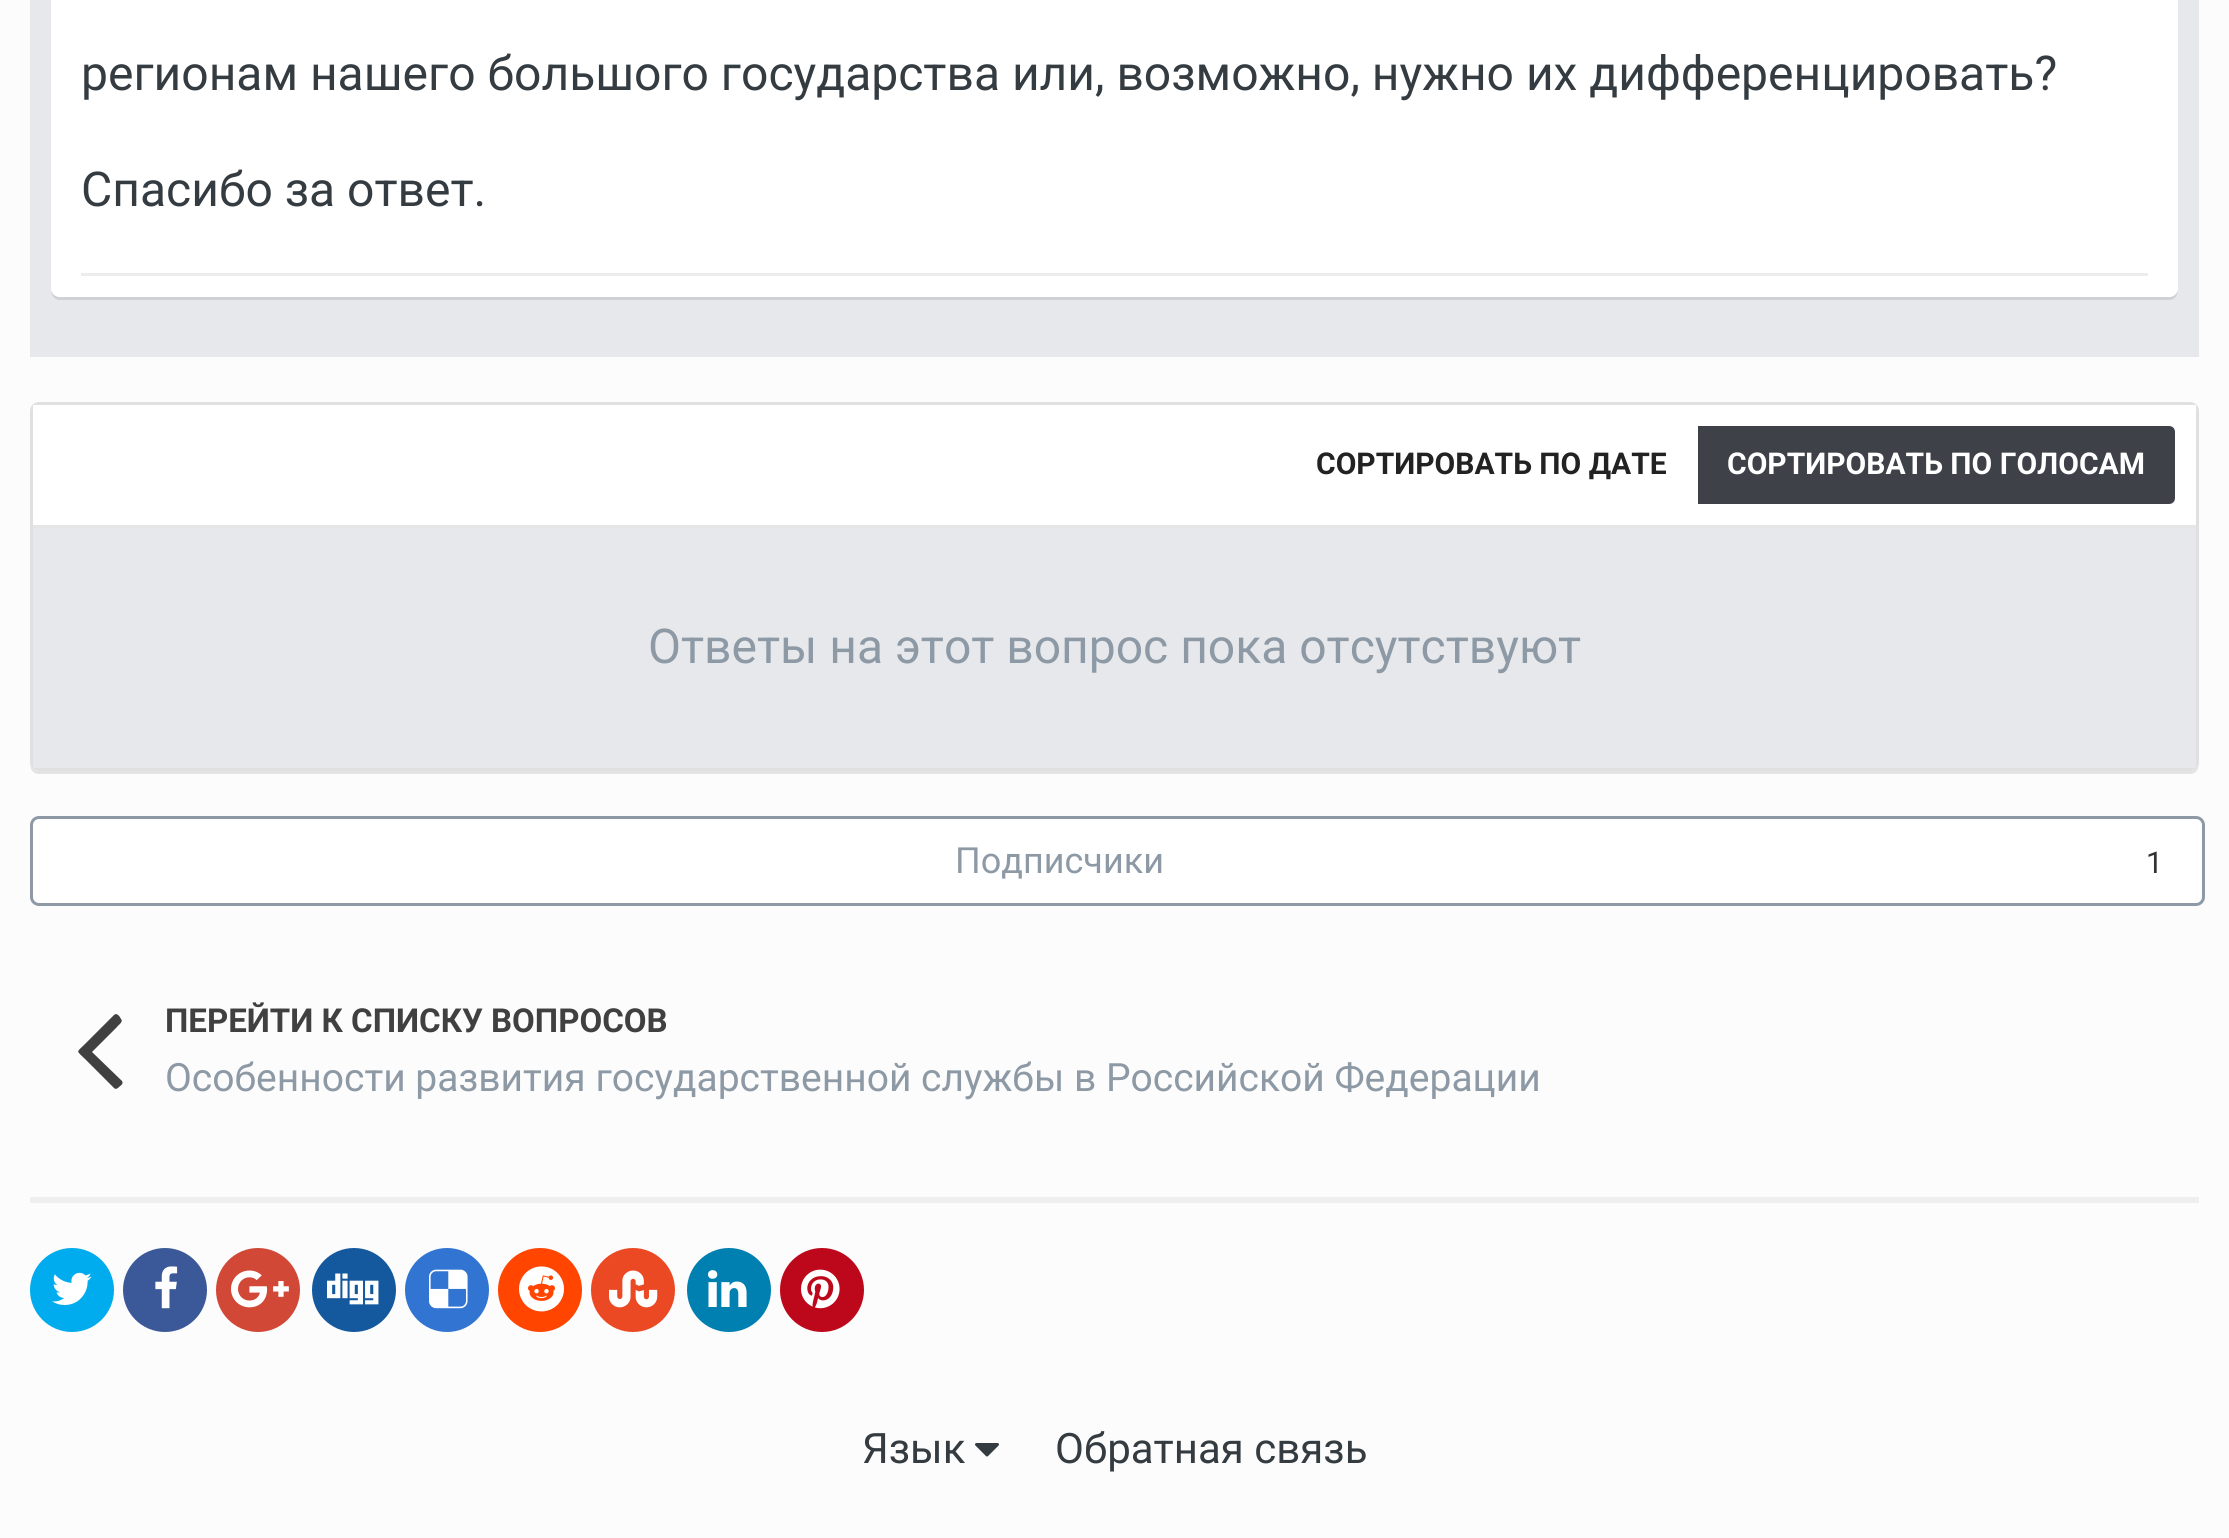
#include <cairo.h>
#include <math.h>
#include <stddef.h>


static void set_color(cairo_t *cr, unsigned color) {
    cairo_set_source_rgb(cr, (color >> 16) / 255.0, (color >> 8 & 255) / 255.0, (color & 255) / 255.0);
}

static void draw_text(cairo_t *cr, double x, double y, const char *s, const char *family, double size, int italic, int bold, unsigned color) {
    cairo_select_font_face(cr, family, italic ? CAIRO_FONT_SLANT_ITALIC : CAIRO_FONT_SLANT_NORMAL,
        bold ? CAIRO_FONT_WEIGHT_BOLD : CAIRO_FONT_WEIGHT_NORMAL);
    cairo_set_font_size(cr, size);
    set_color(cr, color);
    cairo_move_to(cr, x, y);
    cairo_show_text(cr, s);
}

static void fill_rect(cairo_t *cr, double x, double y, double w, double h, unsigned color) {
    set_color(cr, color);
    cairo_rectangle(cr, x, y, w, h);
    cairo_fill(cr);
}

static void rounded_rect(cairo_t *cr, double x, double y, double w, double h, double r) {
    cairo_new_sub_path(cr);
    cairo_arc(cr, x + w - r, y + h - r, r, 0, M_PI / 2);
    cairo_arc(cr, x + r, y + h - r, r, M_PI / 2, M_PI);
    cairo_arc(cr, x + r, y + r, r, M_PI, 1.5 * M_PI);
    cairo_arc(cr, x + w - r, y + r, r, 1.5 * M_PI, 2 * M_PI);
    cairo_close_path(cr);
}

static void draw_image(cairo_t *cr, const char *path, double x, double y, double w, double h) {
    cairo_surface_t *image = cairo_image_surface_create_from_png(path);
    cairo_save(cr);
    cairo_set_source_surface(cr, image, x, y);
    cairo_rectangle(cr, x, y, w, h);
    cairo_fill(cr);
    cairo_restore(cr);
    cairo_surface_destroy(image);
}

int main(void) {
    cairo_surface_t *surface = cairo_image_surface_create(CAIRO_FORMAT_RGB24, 2229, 1538);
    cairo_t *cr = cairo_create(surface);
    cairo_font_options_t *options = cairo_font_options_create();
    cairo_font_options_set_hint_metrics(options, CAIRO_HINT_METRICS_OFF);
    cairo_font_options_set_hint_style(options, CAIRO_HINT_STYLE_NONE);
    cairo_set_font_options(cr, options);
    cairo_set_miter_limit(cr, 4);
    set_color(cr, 0xFCFCFC);
    cairo_paint(cr);
    fill_rect(cr, 30, 0, 2169, 357, 0xE6E8EB);
    set_color(cr, 0xCFD1D4);
    cairo_new_path(cr);
    cairo_move_to(cr, 51, 288);
    cairo_curve_to(cr, 51, 294, 53, 300, 60, 300);
    cairo_line_to(cr, 2169, 300);
    cairo_curve_to(cr, 2176, 300, 2178, 294, 2178, 288);
    cairo_curve_to(cr, 2178, 293, 2174, 297, 2169, 297);
    cairo_line_to(cr, 60, 297);
    cairo_curve_to(cr, 55, 297, 51, 293, 51, 288);
    cairo_close_path(cr);
    cairo_fill(cr);
    set_color(cr, 0xFFFFFF);
    rounded_rect(cr, 51, -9, 2127, 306, 9);
    cairo_fill(cr);
    draw_text(cr, 81, 90, "регионам нашего большого государства или, возможно, нужно их дифференцировать?", "Roboto", 48, 0, 0, 0x353C41);
    draw_text(cr, 81, 206, "Спасибо за ответ.", "Roboto", 48, 0, 0, 0x353C41);
    fill_rect(cr, 81, 273, 2067, 3, 0xECECEC);
    set_color(cr, 0xE3E3E3);
    cairo_new_path(cr);
    cairo_move_to(cr, 30, 762);
    cairo_curve_to(cr, 30, 768, 32, 774, 39, 774);
    cairo_line_to(cr, 2190, 774);
    cairo_curve_to(cr, 2197, 774, 2199, 768, 2199, 762);
    cairo_curve_to(cr, 2199, 767, 2195, 771, 2190, 771);
    cairo_line_to(cr, 39, 771);
    cairo_curve_to(cr, 34, 771, 30, 767, 30, 762);
    cairo_close_path(cr);
    cairo_fill(cr);
    rounded_rect(cr, 31.5, 403.5, 2166, 366, 7.5);
    set_color(cr, 0xE0E0E0);
    cairo_set_line_width(cr, 3);
    cairo_stroke(cr);
    fill_rect(cr, 33, 405, 2163, 120, 0xFFFFFF);
    fill_rect(cr, 33, 525, 2163, 3, 0xE6E6E6);
    draw_text(cr, 1316, 474, "СОРТИРОВАТЬ ПО ДАТЕ", "Roboto", 30, 0, 1, 0x222222);
    set_color(cr, 0x3E4148);
    cairo_new_path(cr);
    cairo_move_to(cr, 1698, 426);
    cairo_line_to(cr, 2169, 426);
    cairo_curve_to(cr, 2172.5, 426, 2175, 428.5, 2175, 432);
    cairo_line_to(cr, 2175, 498);
    cairo_curve_to(cr, 2175, 501.5, 2172.5, 504, 2169, 504);
    cairo_line_to(cr, 1698, 504);
    cairo_close_path(cr);
    cairo_fill(cr);
    draw_text(cr, 1727, 474, "СОРТИРОВАТЬ ПО ГОЛОСАМ", "Roboto", 30, 0, 1, 0xFFFFFF);
    fill_rect(cr, 33, 528, 2163, 240, 0xE6E8EB);
    draw_text(cr, 648, 663, "Ответы на этот вопрос пока отсутствуют", "Roboto", 48, 0, 0, 0x8D9AA6);
    set_color(cr, 0xFFFFFF);
    rounded_rect(cr, 31.5, 817.5, 2172, 87, 7.5);
    cairo_fill_preserve(cr);
    set_color(cr, 0x8D9AA6);
    cairo_stroke(cr);
    draw_text(cr, 955, 873, "Подписчики", "Roboto", 36, 0, 0, 0x8D9AA6);
    draw_text(cr, 2146, 873, "1", "Roboto", 30, 0, 0, 0x333333);
    set_color(cr, 0x404040);
    cairo_new_path(cr);
    cairo_move_to(cr, 121, 1019);
    cairo_curve_to(cr, 124, 1022, 117, 1026, 117, 1027);
    cairo_line_to(cr, 92, 1052);
    cairo_line_to(cr, 122, 1081);
    cairo_curve_to(cr, 124, 1084, 120, 1086, 119, 1087);
    cairo_curve_to(cr, 118, 1088, 116, 1090, 114, 1088);
    cairo_line_to(cr, 85, 1059);
    cairo_curve_to(cr, 76, 1050, 76, 1053, 85, 1044);
    cairo_line_to(cr, 114, 1015);
    cairo_curve_to(cr, 117, 1012, 120, 1017, 121, 1019);
    cairo_close_path(cr);
    cairo_fill(cr);
    draw_text(cr, 165, 1032, "ПЕРЕЙТИ К СПИСКУ ВОПРОСОВ", "Roboto", 33, 0, 1, 0x404040);
    draw_text(cr, 165, 1091, "Особенности развития государственной службы в Российской Федерации", "Roboto", 39, 0, 0, 0x8D9AA6);
    fill_rect(cr, 30, 1197, 2169, 6, 0xEFEFEF);
    set_color(cr, 0x00ACED);
    cairo_new_path(cr);
    cairo_arc(cr, 72, 1290, 42, 0, 2 * M_PI);
    cairo_fill(cr);
    draw_image(cr, "assets/img1.png", 52, 1272, 40, 33);
    set_color(cr, 0x3B5998);
    cairo_arc(cr, 165, 1290, 42, 0, 2 * M_PI);
    cairo_fill(cr);
    draw_image(cr, "assets/img2.png", 155, 1266, 23, 43);
    set_color(cr, 0xD14836);
    cairo_arc(cr, 258, 1290, 42, 0, 2 * M_PI);
    cairo_fill(cr);
    draw_image(cr, "assets/img3.png", 231, 1270, 58, 38);
    set_color(cr, 0x14589E);
    cairo_arc(cr, 354, 1290, 42, 0, 2 * M_PI);
    cairo_fill(cr);
    draw_image(cr, "assets/img4.png", 327, 1273, 52, 32);
    set_color(cr, 0x3274D1);
    cairo_arc(cr, 447, 1290, 42, 0, 2 * M_PI);
    cairo_fill(cr);
    draw_image(cr, "assets/img5.png", 429, 1269, 39, 40);
    set_color(cr, 0xFF4500);
    cairo_arc(cr, 540, 1290, 42, 0, 2 * M_PI);
    cairo_fill(cr);
    draw_image(cr, "assets/img6.png", 519, 1266, 45, 46);
    set_color(cr, 0xEB4924);
    cairo_arc(cr, 633, 1290, 42, 0, 2 * M_PI);
    cairo_fill(cr);
    draw_image(cr, "assets/img7.png", 609, 1270, 49, 38);
    set_color(cr, 0x007FB1);
    cairo_arc(cr, 729, 1290, 42, 0, 2 * M_PI);
    cairo_fill(cr);
    draw_image(cr, "assets/img8.png", 708, 1270, 39, 37);
    set_color(cr, 0xBD081C);
    cairo_arc(cr, 822, 1290, 42, 0, 2 * M_PI);
    cairo_fill(cr);
    draw_image(cr, "assets/img9.png", 801, 1269, 39, 40);
    draw_text(cr, 862, 1463, "Язык", "Roboto", 42, 0, 0, 0x353C41);
    draw_image(cr, "assets/img10.png", 975, 1443, 24, 14);
    draw_text(cr, 1055, 1463, "Обратная связь", "Roboto", 42, 0, 0, 0x353C41);
    cairo_surface_write_to_png(surface, "output.png");
    cairo_font_options_destroy(options);
    cairo_destroy(cr);
    cairo_surface_destroy(surface);
    return 0;
}
